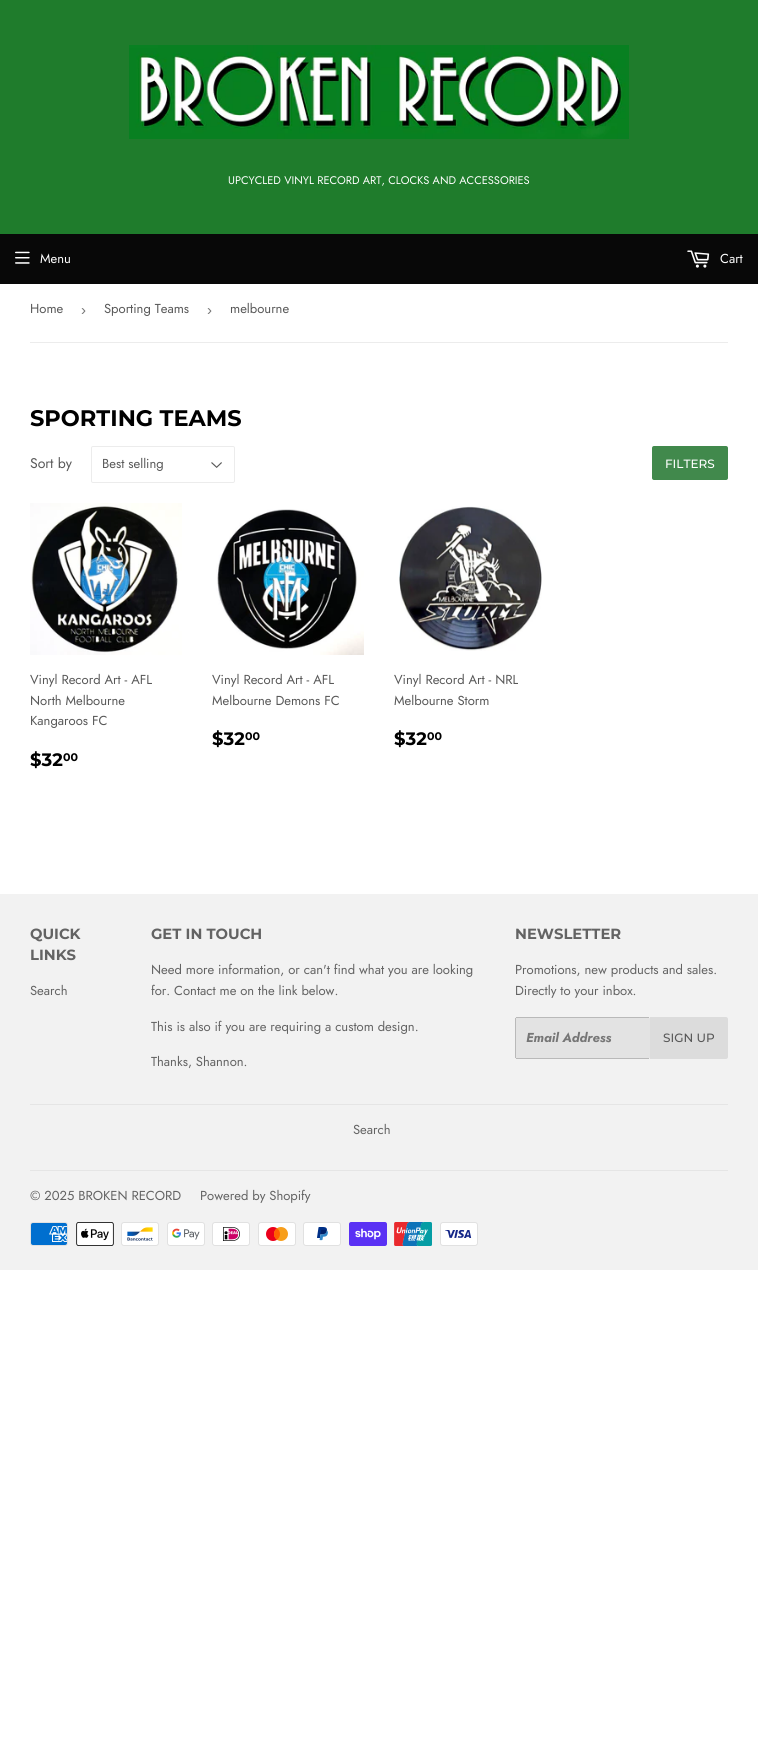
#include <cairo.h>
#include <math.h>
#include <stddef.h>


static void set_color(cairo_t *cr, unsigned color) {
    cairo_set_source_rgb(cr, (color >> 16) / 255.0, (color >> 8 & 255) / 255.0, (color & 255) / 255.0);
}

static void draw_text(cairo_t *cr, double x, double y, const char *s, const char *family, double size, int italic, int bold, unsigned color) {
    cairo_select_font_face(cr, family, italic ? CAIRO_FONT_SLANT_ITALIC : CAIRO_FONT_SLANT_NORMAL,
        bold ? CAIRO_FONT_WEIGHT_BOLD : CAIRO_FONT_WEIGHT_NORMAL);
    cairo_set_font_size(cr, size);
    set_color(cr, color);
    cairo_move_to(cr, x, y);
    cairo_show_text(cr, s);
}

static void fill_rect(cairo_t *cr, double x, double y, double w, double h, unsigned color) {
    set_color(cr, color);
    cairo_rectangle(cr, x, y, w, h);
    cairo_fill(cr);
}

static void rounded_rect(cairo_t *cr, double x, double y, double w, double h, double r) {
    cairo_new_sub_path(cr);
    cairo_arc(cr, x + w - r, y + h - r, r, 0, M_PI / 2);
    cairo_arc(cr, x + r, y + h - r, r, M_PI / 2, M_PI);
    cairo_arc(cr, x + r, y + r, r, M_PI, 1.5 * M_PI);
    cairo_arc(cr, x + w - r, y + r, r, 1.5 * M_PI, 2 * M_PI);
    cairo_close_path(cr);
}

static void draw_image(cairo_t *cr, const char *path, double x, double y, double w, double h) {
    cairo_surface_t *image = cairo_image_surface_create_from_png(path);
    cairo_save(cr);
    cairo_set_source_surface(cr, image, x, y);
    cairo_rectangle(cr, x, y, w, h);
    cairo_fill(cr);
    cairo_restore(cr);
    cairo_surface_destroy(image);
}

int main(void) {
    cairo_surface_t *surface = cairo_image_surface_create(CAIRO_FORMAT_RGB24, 758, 1739);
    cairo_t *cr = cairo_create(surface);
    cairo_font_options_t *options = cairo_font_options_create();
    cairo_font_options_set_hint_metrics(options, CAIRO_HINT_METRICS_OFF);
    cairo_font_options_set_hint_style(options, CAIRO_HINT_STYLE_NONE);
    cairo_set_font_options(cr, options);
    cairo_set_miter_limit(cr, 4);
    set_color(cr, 0xFFFFFF);
    cairo_paint(cr);
    fill_rect(cr, 0, 0, 758, 234, 0x1F7C2C);
    draw_image(cr, "assets/img1.png", 129, 45, 500, 94);
    draw_text(cr, 228, 184, "UPCYCLED VINYL RECORD ART, CLOCKS AND ACCESSORIES", "Jost", 11.05, 0, 0, 0xFFFFFF);
    fill_rect(cr, 0, 234, 758, 50, 0x080808);
    draw_image(cr, "assets/img2.png", 15, 251, 15, 13);
    draw_text(cr, 40, 263, "Menu", "Jost", 13, 0, 0, 0xFFFFFF);
    draw_image(cr, "assets/img3.png", 687, 250, 23, 18);
    draw_text(cr, 720, 263, "Cart", "Jost", 13, 0, 0, 0xFFFFFF);
    fill_rect(cr, 30, 342, 698, 1, 0xECECEC);
    draw_text(cr, 30, 313, "Home", "Jost", 13, 0, 0, 0x585858);
    draw_text(cr, 81, 315, "›", "Liberation Sans", 15, 0, 0, 0x767676);
    draw_text(cr, 104, 313, "Sporting Teams", "Jost", 13, 0, 0, 0x585858);
    draw_text(cr, 207, 315, "›", "Liberation Sans", 15, 0, 0, 0x767676);
    draw_text(cr, 230, 313, "melbourne", "Jost", 13, 0, 0, 0x585858);
    draw_text(cr, 30, 426, "SPORTING TEAMS", "Montserrat", 22.5, 0, 1, 0x000000);
    draw_text(cr, 30, 468, "Sort by", "Jost", 14, 0, 0, 0x585858);
    draw_image(cr, "assets/img4.png", 211, 462, 11, 6);
    rounded_rect(cr, 91.5, 446.5, 143, 36, 1.5);
    set_color(cr, 0xECECEC);
    cairo_set_line_width(cr, 1);
    cairo_stroke(cr);
    draw_text(cr, 102, 468, "Best selling", "Jost", 13, 0, 0, 0x585858);
    set_color(cr, 0x41894C);
    rounded_rect(cr, 652, 446, 76, 34, 2);
    cairo_fill(cr);
    draw_text(cr, 665, 468, "FILTERS", "Montserrat Medium", 12, 0, 0, 0xFFFFFF);
    draw_image(cr, "assets/img5.png", 30, 503, 152, 152);
    draw_text(cr, 30, 684, "Vinyl Record Art - AFL", "Jost", 13, 0, 0, 0x585858);
    draw_text(cr, 30, 705, "North Melbourne", "Jost", 13, 0, 0, 0x585858);
    draw_text(cr, 30, 725, "Kangaroos FC", "Jost", 13, 0, 0, 0x585858);
    draw_text(cr, 30, 766, "$32", "Montserrat", 18, 0, 1, 0x000000);
    draw_text(cr, 63, 761, "00", "Montserrat", 11, 0, 1, 0x000000);
    draw_image(cr, "assets/img6.png", 216, 509, 148, 146);
    draw_text(cr, 212, 684, "Vinyl Record Art - AFL", "Jost", 13, 0, 0, 0x585858);
    draw_text(cr, 212, 705, "Melbourne Demons FC", "Jost", 13, 0, 0, 0x585858);
    draw_text(cr, 212, 745, "$32", "Montserrat", 18, 0, 1, 0x000000);
    draw_text(cr, 245, 740, "00", "Montserrat", 11, 0, 1, 0x000000);
    draw_image(cr, "assets/img7.png", 399, 506, 143, 145);
    draw_text(cr, 394, 684, "Vinyl Record Art - NRL", "Jost", 13, 0, 0, 0x585858);
    draw_text(cr, 394, 705, "Melbourne Storm", "Jost", 13, 0, 0, 0x585858);
    draw_text(cr, 394, 745, "$32", "Montserrat", 18, 0, 1, 0x000000);
    draw_text(cr, 427, 740, "00", "Montserrat", 11, 0, 1, 0x000000);
    fill_rect(cr, 0, 894, 758, 376, 0xF2F2F2);
    draw_text(cr, 30, 939, "QUICK", "Montserrat", 14.75, 0, 1, 0x636363);
    draw_text(cr, 30, 960, "LINKS", "Montserrat", 14.75, 0, 1, 0x636363);
    draw_text(cr, 30, 995, "Search", "Jost", 13, 0, 0, 0x636363);
    draw_text(cr, 151, 939, "GET IN TOUCH", "Montserrat", 14.75, 0, 1, 0x636363);
    draw_text(cr, 151, 974, "Need more information, or can't find what you are looking", "Jost", 13, 0, 0, 0x636363);
    draw_text(cr, 151, 995, "for. Contact me on the link below.", "Jost", 13, 0, 0, 0x636363);
    draw_text(cr, 151, 1031, "This is also if you are requiring a custom design.", "Jost", 13, 0, 0, 0x636363);
    draw_text(cr, 151, 1066, "Thanks, Shannon.", "Jost", 13, 0, 0, 0x636363);
    draw_text(cr, 515, 939, "NEWSLETTER", "Montserrat", 14.75, 0, 1, 0x636363);
    draw_text(cr, 515, 974, "Promotions, new products and sales.", "Jost", 13, 0, 0, 0x636363);
    draw_text(cr, 515, 995, "Directly to your inbox.", "Jost", 13, 0, 0, 0x636363);
    set_color(cr, 0xE3E3E3);
    rounded_rect(cr, 515, 1017, 135, 42, 2);
    cairo_fill(cr);
    fill_rect(cr, 516, 1017, 133, 1, 0xB9B9B9);
    fill_rect(cr, 516, 1058, 133, 1, 0xB9B9B9);
    fill_rect(cr, 515, 1018, 1, 40, 0xB9B9B9);
    draw_text(cr, 526, 1042, "Email Address", "Jost", 13, 1, 1, 0x767676);
    set_color(cr, 0xDCDCDC);
    cairo_new_path(cr);
    cairo_move_to(cr, 650, 1017);
    cairo_line_to(cr, 726, 1017);
    cairo_curve_to(cr, 727, 1017, 728, 1018, 728, 1019);
    cairo_line_to(cr, 728, 1057);
    cairo_curve_to(cr, 728, 1058, 727, 1059, 726, 1059);
    cairo_line_to(cr, 650, 1059);
    cairo_close_path(cr);
    cairo_fill(cr);
    draw_text(cr, 663, 1042, "SIGN UP", "Montserrat Medium", 12, 0, 0, 0x585858);
    fill_rect(cr, 30, 1104, 698, 1, 0xE5E5E5);
    draw_text(cr, 353, 1134, "Search", "Jost", 13, 0, 0, 0x636363);
    fill_rect(cr, 30, 1170, 698, 1, 0xE5E5E5);
    draw_text(cr, 30, 1200, "© 2025 BROKEN RECORD", "Jost", 13, 0, 0, 0x636363);
    draw_text(cr, 200, 1200, "Powered by Shopify", "Jost", 13, 0, 0, 0x636363);
    draw_image(cr, "assets/img8.png", 30, 1222, 38, 24);
    draw_image(cr, "assets/img9.png", 76, 1222, 38, 24);
    draw_image(cr, "assets/img10.png", 121, 1222, 38, 24);
    draw_image(cr, "assets/img11.png", 167, 1222, 38, 24);
    draw_image(cr, "assets/img12.png", 212, 1222, 38, 24);
    draw_image(cr, "assets/img13.png", 258, 1222, 38, 24);
    draw_image(cr, "assets/img14.png", 303, 1222, 38, 24);
    draw_image(cr, "assets/img15.png", 349, 1222, 38, 24);
    draw_image(cr, "assets/img16.png", 394, 1222, 38, 24);
    draw_image(cr, "assets/img17.png", 440, 1222, 38, 24);
    cairo_surface_write_to_png(surface, "output.png");
    cairo_font_options_destroy(options);
    cairo_destroy(cr);
    cairo_surface_destroy(surface);
    return 0;
}
